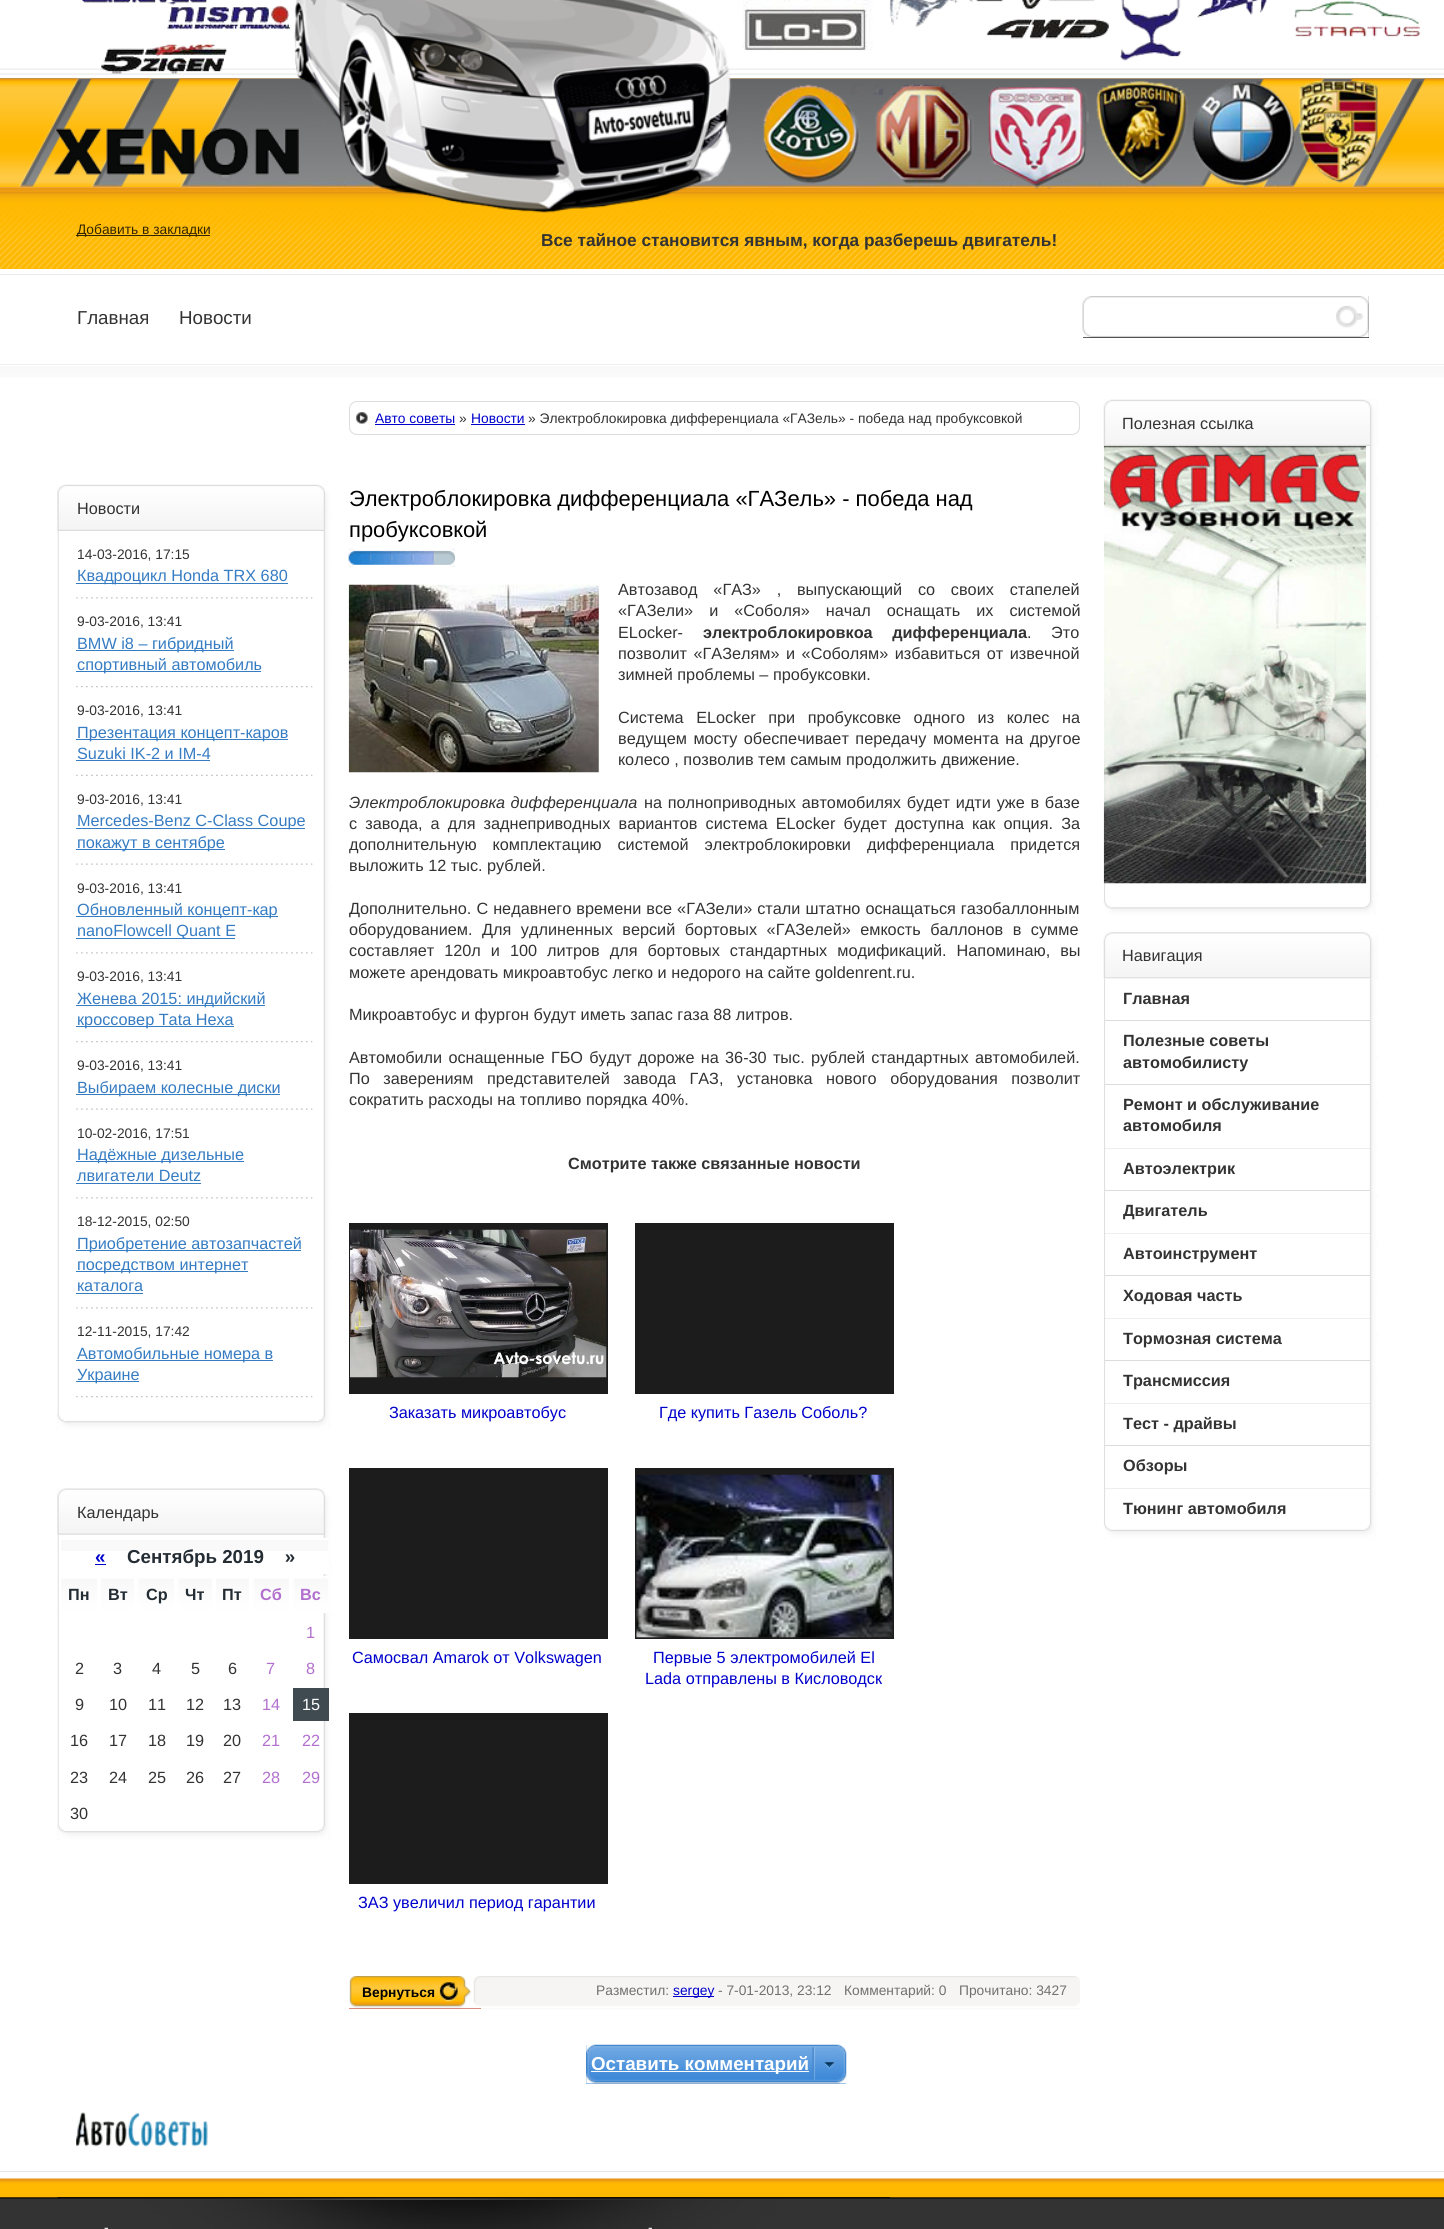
#include <cairo.h>
#include <math.h>
#include <stddef.h>


static void set_color(cairo_t *cr, unsigned color) {
    cairo_set_source_rgb(cr, (color >> 16) / 255.0, (color >> 8 & 255) / 255.0, (color & 255) / 255.0);
}

static void draw_text(cairo_t *cr, double x, double y, const char *s, const char *family, double size, int italic, int bold, unsigned color) {
    cairo_select_font_face(cr, family, italic ? CAIRO_FONT_SLANT_ITALIC : CAIRO_FONT_SLANT_NORMAL,
        bold ? CAIRO_FONT_WEIGHT_BOLD : CAIRO_FONT_WEIGHT_NORMAL);
    cairo_set_font_size(cr, size);
    set_color(cr, color);
    cairo_move_to(cr, x, y);
    cairo_show_text(cr, s);
}

static void draw_spaced(cairo_t *cr, double x, double y, const char *s, double letter, double word) {
    cairo_move_to(cr, x, y);
    while (*s) {
        char ch[5] = {0};
        int n = 0;
        do ch[n++] = *s++; while ((*s & 0xC0) == 0x80);
        cairo_show_text(cr, ch);
        cairo_rel_move_to(cr, letter + word * (*ch == ' '), 0);
    }
}

static void fill_rect(cairo_t *cr, double x, double y, double w, double h, unsigned color) {
    set_color(cr, color);
    cairo_rectangle(cr, x, y, w, h);
    cairo_fill(cr);
}

static void rounded_rect(cairo_t *cr, double x, double y, double w, double h, double r) {
    cairo_new_sub_path(cr);
    cairo_arc(cr, x + w - r, y + h - r, r, 0, M_PI / 2);
    cairo_arc(cr, x + r, y + h - r, r, M_PI / 2, M_PI);
    cairo_arc(cr, x + r, y + r, r, M_PI, 1.5 * M_PI);
    cairo_arc(cr, x + w - r, y + r, r, 1.5 * M_PI, 2 * M_PI);
    cairo_close_path(cr);
}

static void draw_image(cairo_t *cr, const char *path, double x, double y, double w, double h) {
    cairo_surface_t *image = cairo_image_surface_create_from_png(path);
    cairo_save(cr);
    cairo_set_source_surface(cr, image, x, y);
    cairo_rectangle(cr, x, y, w, h);
    cairo_fill(cr);
    cairo_restore(cr);
    cairo_surface_destroy(image);
}

int main(void) {
    cairo_surface_t *surface = cairo_image_surface_create(CAIRO_FORMAT_RGB24, 1444, 2229);
    cairo_t *cr = cairo_create(surface);
    cairo_font_options_t *options = cairo_font_options_create();
    cairo_font_options_set_hint_metrics(options, CAIRO_HINT_METRICS_OFF);
    cairo_font_options_set_hint_style(options, CAIRO_HINT_STYLE_NONE);
    cairo_set_font_options(cr, options);
    cairo_set_miter_limit(cr, 4);
    set_color(cr, 0xFFFFFF);
    cairo_paint(cr);
    draw_image(cr, "assets/img1.png", 0, 68, 1444, 7);
    draw_image(cr, "assets/img3.png", 0, 78, 1444, 1);
    draw_image(cr, "assets/img4.png", 0, 78, 1444, 110);
    draw_image(cr, "assets/img5.png", 1201, 78, 243, 110);
    draw_image(cr, "assets/img6.png", 0, 78, 243, 110);
    fill_rect(cr, 0, 268, 1444, 1, 0xFFB900);
    draw_image(cr, "assets/img7.png", 0, 187, 1444, 82);
    draw_image(cr, "assets/img2.png", 53, 0, 1368, 213);
    fill_rect(cr, 76, 235, 134, 1, 0x332500);
    draw_text(cr, 77, 234, "Добавить в закладки", "Liberation Sans", 13.8, 0, 0, 0x332500);
    draw_text(cr, 541, 246, "Все тайное становится явным, когда разберешь двигатель!", "Liberation Sans", 17.25, 0, 1, 0x333333);
    fill_rect(cr, 0, 274, 1444, 1, 0xEBEBEB);
    fill_rect(cr, 0, 364, 1444, 1, 0xEBEBEB);
    draw_text(cr, 77, 324, "Главная", "Liberation Sans", 18.75, 0, 0, 0x333333);
    draw_text(cr, 179, 324, "Новости", "Liberation Sans", 18.75, 0, 0, 0x333333);
    fill_rect(cr, 1083, 296, 286, 42, 0x282828);
    draw_image(cr, "assets/img8.png", 1082, 296, 287, 42);
    draw_image(cr, "assets/img9.png", 1368, 296, 1, 41);
    draw_image(cr, "assets/img10.png", 0, 364, 1444, 13);
    fill_rect(cr, 0, 2171, 1444, 1, 0xE6E6E6);
    draw_image(cr, "assets/img11.png", 57, 484, 275, 946);
    draw_image(cr, "assets/img12.png", 57, 484, 274, 47);
    draw_text(cr, 77, 514, "Новости", "Liberation Sans", 16.25, 0, 0, 0x333333);
    draw_image(cr, "assets/img13.png", 76, 597, 237, 2);
    draw_text(cr, 77, 559, "14-03-2016, 17:15", "Liberation Sans", 13.8, 0, 0, 0x333333);
    fill_rect(cr, 76, 583, 212, 1, 0x367CC3);
    draw_text(cr, 77, 581, "Квадроцикл Honda TRX 680", "Liberation Sans", 16.25, 0, 0, 0x367CC3);
    draw_image(cr, "assets/img14.png", 76, 686, 237, 2);
    draw_text(cr, 77, 626, "9-03-2016, 13:41", "Liberation Sans", 13.8, 0, 0, 0x333333);
    fill_rect(cr, 76, 650, 158, 1, 0x367CC3);
    draw_text(cr, 77, 649, "BMW i8 – гибридный", "Liberation Sans", 16.25, 0, 0, 0x367CC3);
    fill_rect(cr, 76, 671, 185, 1, 0x367CC3);
    draw_text(cr, 77, 670, "спортивный автомобиль", "Liberation Sans", 16.25, 0, 0, 0x367CC3);
    draw_image(cr, "assets/img15.png", 76, 774, 237, 2);
    draw_text(cr, 77, 715, "9-03-2016, 13:41", "Liberation Sans", 13.8, 0, 0, 0x333333);
    fill_rect(cr, 76, 739, 212, 1, 0x367CC3);
    draw_text(cr, 77, 738, "Презентация концепт-каров", "Liberation Sans", 16.25, 0, 0, 0x367CC3);
    draw_text(cr, 77, 759, "Suzuki IK-2 и IM-4", "Liberation Sans", 16.25, 0, 0, 0x367CC3);
    fill_rect(cr, 76, 760, 134, 1, 0x367CC3);
    draw_image(cr, "assets/img16.png", 76, 863, 237, 2);
    draw_text(cr, 77, 804, "9-03-2016, 13:41", "Liberation Sans", 13.8, 0, 0, 0x333333);
    fill_rect(cr, 76, 828, 229, 1, 0x367CC3);
    draw_text(cr, 77, 826, "Mercedes-Benz C-Class Coupe", "Liberation Sans", 16.25, 0, 0, 0x367CC3);
    fill_rect(cr, 76, 849, 149, 1, 0x367CC3);
    draw_text(cr, 77, 848, "покажут в сентябре", "Liberation Sans", 16.25, 0, 0, 0x367CC3);
    draw_image(cr, "assets/img13.png", 76, 952, 237, 2);
    draw_text(cr, 77, 893, "9-03-2016, 13:41", "Liberation Sans", 13.8, 0, 0, 0x333333);
    fill_rect(cr, 76, 916, 202, 1, 0x367CC3);
    draw_text(cr, 77, 915, "Обновленный концепт-кар", "Liberation Sans", 16.25, 0, 0, 0x367CC3);
    fill_rect(cr, 76, 938, 159, 1, 0x367CC3);
    draw_text(cr, 77, 936, "nanoFlowcell Quant E", "Liberation Sans", 16.25, 0, 0, 0x367CC3);
    draw_image(cr, "assets/img14.png", 76, 1041, 237, 2);
    draw_text(cr, 77, 981, "9-03-2016, 13:41", "Liberation Sans", 13.8, 0, 0, 0x333333);
    fill_rect(cr, 76, 1005, 189, 1, 0x367CC3);
    draw_text(cr, 77, 1004, "Женева 2015: индийский", "Liberation Sans", 16.25, 0, 0, 0x367CC3);
    fill_rect(cr, 76, 1026, 158, 1, 0x367CC3);
    draw_text(cr, 77, 1025, "кроссовер Tata Hexa", "Liberation Sans", 16.25, 0, 0, 0x367CC3);
    draw_image(cr, "assets/img16.png", 76, 1108, 237, 2);
    draw_text(cr, 77, 1070, "9-03-2016, 13:41", "Liberation Sans", 13.8, 0, 0, 0x333333);
    fill_rect(cr, 76, 1094, 204, 1, 0x367CC3);
    draw_text(cr, 77, 1093, "Выбираем колесные диски", "Liberation Sans", 16.25, 0, 0, 0x367CC3);
    draw_image(cr, "assets/img13.png", 76, 1197, 237, 2);
    draw_text(cr, 77, 1138, "10-02-2016, 17:51", "Liberation Sans", 13.8, 0, 0, 0x333333);
    fill_rect(cr, 76, 1161, 168, 1, 0x367CC3);
    draw_text(cr, 77, 1160, "Надёжные дизельные", "Liberation Sans", 16.25, 0, 0, 0x367CC3);
    draw_text(cr, 77, 1181, "лвигатели Deutz", "Liberation Sans", 16.25, 0, 0, 0x367CC3);
    fill_rect(cr, 76, 1183, 125, 1, 0x367CC3);
    draw_image(cr, "assets/img13.png", 76, 1307, 237, 2);
    draw_text(cr, 77, 1226, "18-12-2015, 02:50", "Liberation Sans", 13.8, 0, 0, 0x333333);
    fill_rect(cr, 76, 1250, 225, 1, 0x367CC3);
    draw_text(cr, 77, 1249, "Приобретение автозапчастей", "Liberation Sans", 16.25, 0, 0, 0x367CC3);
    fill_rect(cr, 76, 1271, 172, 1, 0x367CC3);
    draw_text(cr, 77, 1270, "посредством интернет", "Liberation Sans", 16.25, 0, 0, 0x367CC3);
    draw_text(cr, 77, 1291, "каталога", "Liberation Sans", 16.25, 0, 0, 0x367CC3);
    fill_rect(cr, 76, 1293, 67, 1, 0x367CC3);
    draw_image(cr, "assets/img14.png", 76, 1396, 237, 2);
    draw_text(cr, 77, 1336, "12-11-2015, 17:42", "Liberation Sans", 13.8, 0, 0, 0x333333);
    fill_rect(cr, 76, 1360, 197, 1, 0x367CC3);
    draw_text(cr, 77, 1359, "Автомобильные номера в", "Liberation Sans", 16.25, 0, 0, 0x367CC3);
    fill_rect(cr, 76, 1381, 63, 1, 0x367CC3);
    draw_text(cr, 77, 1380, "Украине", "Liberation Sans", 16.25, 0, 0, 0x367CC3);
    draw_image(cr, "assets/img17.png", 57, 1415, 271, 15);
    draw_image(cr, "assets/img18.png", 57, 1488, 275, 352);
    draw_image(cr, "assets/img19.png", 57, 1488, 274, 47);
    draw_text(cr, 77, 1518, "Календарь", "Liberation Sans", 16.25, 0, 0, 0x333333);
    fill_rect(cr, 323, 1539, 5, 34, 0xFFFFFF);
    fill_rect(cr, 61, 1540, 267, 11, 0xF9F9F9);
    cairo_rectangle(cr, 60.5, 1538.5, 268, 35);
    set_color(cr, 0xFFFFFF);
    cairo_set_line_width(cr, 1);
    cairo_stroke(cr);
    draw_text(cr, 95, 1563, "«", "Liberation Sans", 18.75, 0, 1, 0x0000CC);
    fill_rect(cr, 95, 1564, 11, 1, 0x0000CC);
    draw_text(cr, 127, 1563, "Сентябрь 2019    »", "Liberation Sans", 18.75, 0, 1, 0x242C34);
    draw_image(cr, "assets/img20.png", 61, 1577, 36, 35);
    draw_text(cr, 68, 1600, "Пн", "Liberation Sans", 16.25, 0, 1, 0x242C34);
    draw_image(cr, "assets/img21.png", 101, 1577, 33, 35);
    draw_text(cr, 108, 1600, "Вт", "Liberation Sans", 16.25, 0, 1, 0x242C34);
    draw_image(cr, "assets/img22.png", 137, 1577, 37, 35);
    cairo_rectangle(cr, 138.5, 1576.5, 36, 36);
    set_color(cr, 0xFFFFFF);
    cairo_stroke(cr);
    draw_text(cr, 146, 1600, "Ср", "Liberation Sans", 16.25, 0, 1, 0x242C34);
    draw_image(cr, "assets/img23.png", 177, 1577, 35, 35);
    cairo_rectangle(cr, 178.5, 1576.5, 34, 36);
    set_color(cr, 0xFFFFFF);
    cairo_stroke(cr);
    draw_text(cr, 185, 1600, "Чт", "Liberation Sans", 16.25, 0, 1, 0x242C34);
    draw_image(cr, "assets/img21.png", 216, 1577, 33, 35);
    draw_text(cr, 222, 1600, "Пт", "Liberation Sans", 16.25, 0, 1, 0x242C34);
    draw_image(cr, "assets/img22.png", 252, 1577, 37, 35);
    cairo_rectangle(cr, 253.5, 1576.5, 36, 36);
    set_color(cr, 0xFFFFFF);
    cairo_stroke(cr);
    draw_text(cr, 260, 1600, "Сб", "Liberation Sans", 16.25, 0, 1, 0xB270CE);
    draw_image(cr, "assets/img24.png", 292, 1577, 36, 35);
    cairo_rectangle(cr, 293.5, 1576.5, 35, 36);
    set_color(cr, 0xFFFFFF);
    cairo_stroke(cr);
    draw_text(cr, 300, 1600, "Вс", "Liberation Sans", 16.25, 0, 1, 0xB270CE);
    draw_text(cr, 306, 1638, "1", "Liberation Sans", 16.25, 0, 0, 0xB270CE);
    draw_text(cr, 75, 1674, "2", "Liberation Sans", 16.25, 0, 0, 0x333333);
    draw_text(cr, 113, 1674, "3", "Liberation Sans", 16.25, 0, 0, 0x333333);
    draw_text(cr, 152, 1674, "4", "Liberation Sans", 16.25, 0, 0, 0x333333);
    draw_text(cr, 191, 1674, "5", "Liberation Sans", 16.25, 0, 0, 0x333333);
    draw_text(cr, 228, 1674, "6", "Liberation Sans", 16.25, 0, 0, 0x333333);
    draw_text(cr, 266, 1674, "7", "Liberation Sans", 16.25, 0, 0, 0xB270CE);
    draw_text(cr, 306, 1674, "8", "Liberation Sans", 16.25, 0, 0, 0xB270CE);
    draw_text(cr, 75, 1710, "9", "Liberation Sans", 16.25, 0, 0, 0x333333);
    draw_text(cr, 109, 1710, "10", "Liberation Sans", 16.25, 0, 0, 0x333333);
    draw_text(cr, 148, 1710, "11", "Liberation Sans", 16.25, 0, 0, 0x333333);
    draw_text(cr, 186, 1710, "12", "Liberation Sans", 16.25, 0, 0, 0x333333);
    draw_text(cr, 223, 1710, "13", "Liberation Sans", 16.25, 0, 0, 0x333333);
    draw_text(cr, 262, 1710, "14", "Liberation Sans", 16.25, 0, 0, 0xB270CE);
    fill_rect(cr, 293, 1688, 36, 33, 0x3F4B51);
    draw_text(cr, 302, 1710, "15", "Liberation Sans", 16.25, 0, 0, 0xFFFFFF);
    draw_text(cr, 70, 1746, "16", "Liberation Sans", 16.25, 0, 0, 0x333333);
    draw_text(cr, 109, 1746, "17", "Liberation Sans", 16.25, 0, 0, 0x333333);
    draw_text(cr, 148, 1746, "18", "Liberation Sans", 16.25, 0, 0, 0x333333);
    draw_text(cr, 186, 1746, "19", "Liberation Sans", 16.25, 0, 0, 0x333333);
    draw_text(cr, 223, 1746, "20", "Liberation Sans", 16.25, 0, 0, 0x333333);
    draw_text(cr, 262, 1746, "21", "Liberation Sans", 16.25, 0, 0, 0xB270CE);
    draw_text(cr, 302, 1746, "22", "Liberation Sans", 16.25, 0, 0, 0xB270CE);
    draw_text(cr, 70, 1783, "23", "Liberation Sans", 16.25, 0, 0, 0x333333);
    draw_text(cr, 109, 1783, "24", "Liberation Sans", 16.25, 0, 0, 0x333333);
    draw_text(cr, 148, 1783, "25", "Liberation Sans", 16.25, 0, 0, 0x333333);
    draw_text(cr, 186, 1783, "26", "Liberation Sans", 16.25, 0, 0, 0x333333);
    draw_text(cr, 223, 1783, "27", "Liberation Sans", 16.25, 0, 0, 0x333333);
    draw_text(cr, 262, 1783, "28", "Liberation Sans", 16.25, 0, 0, 0xB270CE);
    draw_text(cr, 302, 1783, "29", "Liberation Sans", 16.25, 0, 0, 0xB270CE);
    draw_text(cr, 70, 1819, "30", "Liberation Sans", 16.25, 0, 0, 0x333333);
    draw_image(cr, "assets/img17.png", 57, 1825, 271, 15);
    draw_image(cr, "assets/img25.png", 356, 412, 12, 12);
    rounded_rect(cr, 349.5, 401.5, 730, 33, 7.5);
    set_color(cr, 0xDCDCDC);
    cairo_stroke(cr);
    draw_text(cr, 375, 423, "Авто советы", "Liberation Sans", 13.8, 0, 0, 0x0000CC);
    fill_rect(cr, 375, 424, 80, 1, 0x0000CC);
    draw_text(cr, 459, 423, "»", "Liberation Sans", 13.8, 0, 0, 0x333333);
    draw_text(cr, 471, 423, "Новости", "Liberation Sans", 13.8, 0, 0, 0x0000CC);
    fill_rect(cr, 471, 424, 54, 1, 0x0000CC);
    draw_text(cr, 528, 423, "» Электроблокировка дифференциала «ГАЗель» - победа над пробуксовкой", "Liberation Sans", 13.8, 0, 0, 0x333333);
    draw_text(cr, 349, 506, "Электроблокировка дифференциала «ГАЗель» - победа над", "Liberation Sans", 21.95, 0, 0, 0x000000);
    draw_text(cr, 349, 537, "пробуксовкой", "Liberation Sans", 21.95, 0, 0, 0x000000);
    draw_image(cr, "assets/img26.png", 348, 548, 107, 20);
    draw_image(cr, "assets/img27.png", 348, 550, 86, 15);
    draw_image(cr, "assets/img28.png", 348, 584, 251, 189);
    cairo_set_font_size(cr, 16.25);
    set_color(cr, 0x333333);
    draw_spaced(cr, 618, 595, "Автозавод «ГАЗ» , выпускающий со своих стапелей", 0, 11.25);
    draw_spaced(cr, 618, 616, "«ГАЗели» и «Соболя» начал оснащать их системой", 0, 11.5);
    draw_text(cr, 618, 638, "ELocker-", "Liberation Sans", 16.25, 0, 0, 0x333333);
    cairo_select_font_face(cr, "Liberation Sans", CAIRO_FONT_SLANT_NORMAL, CAIRO_FONT_WEIGHT_BOLD);
    draw_spaced(cr, 703, 638, "электроблокировкоа дифференциала", 0, 15);
    cairo_select_font_face(cr, "Liberation Sans", CAIRO_FONT_SLANT_NORMAL, CAIRO_FONT_WEIGHT_NORMAL);
    draw_spaced(cr, 1027, 638, ". Это", 0, 15);
    draw_spaced(cr, 618, 659, "позволит «ГАЗелям» и «Соболям» избавиться от извечной", 0, 2);
    draw_text(cr, 618, 680, "зимней проблемы – пробуксовки.", "Liberation Sans", 16.25, 0, 0, 0x333333);
    draw_spaced(cr, 618, 723, "Система ELocker при пробуксовке одного из колес на", 0, 8);
    draw_spaced(cr, 618, 744, "ведущем мосту обеспечивает передачу момента на другое", 0, 2);
    draw_text(cr, 618, 765, "колесо , позволив тем самым продолжить движение.", "Liberation Sans", 16.25, 0, 0, 0x333333);
    cairo_select_font_face(cr, "Liberation Sans", CAIRO_FONT_SLANT_ITALIC, CAIRO_FONT_WEIGHT_NORMAL);
    draw_spaced(cr, 349, 808, "Электроблокировка дифференциала", 0, 1);
    cairo_select_font_face(cr, "Liberation Sans", CAIRO_FONT_SLANT_NORMAL, CAIRO_FONT_WEIGHT_NORMAL);
    draw_spaced(cr, 644, 808, "на полноприводных автомобилях будет идти уже в базе", 0, 1.25);
    draw_spaced(cr, 349, 829, "с завода, а для заднеприводных вариантов система ELocker будет доступна как опция. За", 0, 3.6);
    draw_spaced(cr, 349, 850, "дополнительную комплектацию системой электроблокировки дифференциала придется", 0, 11.5);
    draw_text(cr, 349, 871, "выложить 12 тыс. рублей.", "Liberation Sans", 16.25, 0, 0, 0x333333);
    draw_spaced(cr, 349, 914, "Дополнительно. С недавнего времени все «ГАЗели» стали штатно оснащаться газобаллонным", 0, 0.5);
    draw_spaced(cr, 349, 935, "оборудованием. Для удлиненных версий бортовых «ГАЗелей» емкость баллонов в сумме", 0, 5);
    draw_spaced(cr, 349, 956, "составляет 120л и 100 литров для бортовых стандартных модификаций. Напоминаю, вы", 0, 5.5);
    draw_text(cr, 349, 978, "можете арендовать микроавтобус легко и недорого на сайте goldenrent.ru.", "Liberation Sans", 16.25, 0, 0, 0x333333);
    draw_text(cr, 349, 1020, "Микроавтобус и фургон будут иметь запас газа 88 литров.", "Liberation Sans", 16.25, 0, 0, 0x333333);
    draw_spaced(cr, 349, 1063, "Автомобили оснащенные ГБО будут дороже на 36-30 тыс. рублей стандартных автомобилей.", 0, 1.75);
    draw_spaced(cr, 349, 1084, "По заверениям представителей завода ГАЗ, установка нового оборудования позволит", 0, 9);
    draw_text(cr, 349, 1105, "сократить расходы на топливо порядка 40%.", "Liberation Sans", 16.25, 0, 0, 0x333333);
    draw_text(cr, 568, 1169, "Смотрите также связанные новости", "Liberation Sans", 16.25, 0, 1, 0x333333);
    fill_rect(cr, 349, 1223, 259, 171, 0x1C1C1C);
    draw_image(cr, "assets/img29.png", 350, 1229, 257, 149);
    draw_text(cr, 389, 1418, "Заказать микроавтобус", "Liberation Sans", 16.25, 0, 0, 0x0000CC);
    fill_rect(cr, 635, 1223, 259, 171, 0x1C1C1C);
    draw_text(cr, 659, 1418, "Где купить Газель Соболь?", "Liberation Sans", 16.25, 0, 0, 0x0000CC);
    fill_rect(cr, 349, 1468, 259, 171, 0x1C1C1C);
    draw_text(cr, 352, 1663, "Самосвал Amarok от Volkswagen", "Liberation Sans", 16.25, 0, 0, 0x0000CC);
    fill_rect(cr, 635, 1468, 259, 171, 0x1C1C1C);
    draw_image(cr, "assets/img30.png", 636, 1474, 257, 164);
    draw_text(cr, 653, 1663, "Первые 5 электромобилей El", "Liberation Sans", 16.25, 0, 0, 0x0000CC);
    draw_text(cr, 645, 1684, "Lada отправлены в Кисловодск", "Liberation Sans", 16.25, 0, 0, 0x0000CC);
    fill_rect(cr, 349, 1713, 259, 171, 0x1C1C1C);
    draw_text(cr, 358, 1908, "ЗАЗ увеличил период гарантии", "Liberation Sans", 16.25, 0, 0, 0x0000CC);
    fill_rect(cr, 481, 2008, 599, 1, 0xF6F5F3);
    draw_image(cr, "assets/img31.png", 481, 1976, 599, 33);
    draw_image(cr, "assets/img32.png", 1075, 1976, 5, 30);
    fill_rect(cr, 349, 2008, 132, 1, 0xB81600);
    draw_image(cr, "assets/img33.png", 349, 1976, 132, 33);
    draw_text(cr, 362, 1997, "Вернуться", "Liberation Sans", 13.8, 0, 1, 0x000000);
    draw_text(cr, 596, 1995, "Разместил:", "Liberation Sans", 13.8, 0, 0, 0x717171);
    fill_rect(cr, 673, 1996, 41, 1, 0x0000CC);
    draw_text(cr, 673, 1995, "sergey", "Liberation Sans", 13.8, 0, 0, 0x0000CC);
    draw_text(cr, 718, 1995, "- 7-01-2013, 23:12", "Liberation Sans", 13.8, 0, 0, 0x717171);
    draw_text(cr, 844, 1995, "Комментарий: 0", "Liberation Sans", 13.8, 0, 0, 0x717171);
    draw_text(cr, 959, 1995, "Прочитано: 3427", "Liberation Sans", 13.8, 0, 0, 0x717171);
    fill_rect(cr, 586, 2045, 260, 39, 0x428CDA);
    draw_image(cr, "assets/img34.png", 586, 2044, 261, 40);
    fill_rect(cr, 591, 2071, 218, 1, 0xFFFFFF);
    draw_text(cr, 591, 2070, "Оставить комментарий", "Liberation Sans", 18.75, 0, 1, 0xFFFFFF);
    draw_image(cr, "assets/img35.png", 1104, 399, 274, 517);
    fill_rect(cr, 1377, 400, 1, 46, 0xF6F6F6);
    draw_image(cr, "assets/img36.png", 1103, 399, 275, 47);
    draw_text(cr, 1122, 429, "Полезная ссылка", "Liberation Sans", 16.25, 0, 0, 0x333333);
    draw_image(cr, "assets/img37.png", 1103, 446, 264, 438);
    draw_image(cr, "assets/img38.png", 1103, 901, 271, 15);
    draw_image(cr, "assets/img39.png", 1104, 932, 274, 607);
    fill_rect(cr, 1104, 933, 274, 46, 0xF6F6F6);
    draw_image(cr, "assets/img40.png", 1103, 932, 275, 47);
    draw_text(cr, 1122, 961, "Навигация", "Liberation Sans", 16.25, 0, 0, 0x333333);
    fill_rect(cr, 1105, 978, 265, 1, 0xF4F4F4);
    fill_rect(cr, 1105, 1020, 265, 1, 0xDCDCDC);
    draw_text(cr, 1123, 1004, "Главная", "Liberation Sans", 16.25, 0, 1, 0x333333);
    fill_rect(cr, 1105, 1084, 265, 1, 0xDCDCDC);
    draw_text(cr, 1123, 1046, "Полезные советы", "Liberation Sans", 16.25, 0, 1, 0x333333);
    draw_text(cr, 1123, 1068, "автомобилисту", "Liberation Sans", 16.25, 0, 1, 0x333333);
    draw_text(cr, 1123, 1110, "Ремонт и обслуживание", "Liberation Sans", 16.25, 0, 1, 0x333333);
    draw_text(cr, 1123, 1131, "автомобиля", "Liberation Sans", 16.25, 0, 1, 0x333333);
    fill_rect(cr, 1105, 1148, 265, 1, 0xEEEEEE);
    fill_rect(cr, 1105, 1190, 265, 1, 0xDCDCDC);
    draw_text(cr, 1123, 1174, "Автоэлектрик", "Liberation Sans", 16.25, 0, 1, 0x333333);
    draw_text(cr, 1123, 1216, "Двигатель", "Liberation Sans", 16.25, 0, 1, 0x333333);
    fill_rect(cr, 1105, 1233, 265, 1, 0xEEEEEE);
    fill_rect(cr, 1105, 1275, 265, 1, 0xDCDCDC);
    draw_text(cr, 1123, 1259, "Автоинструмент", "Liberation Sans", 16.25, 0, 1, 0x333333);
    draw_text(cr, 1123, 1301, "Ходовая часть", "Liberation Sans", 16.25, 0, 1, 0x333333);
    fill_rect(cr, 1105, 1318, 265, 1, 0xEEEEEE);
    fill_rect(cr, 1105, 1360, 265, 1, 0xDCDCDC);
    draw_text(cr, 1123, 1344, "Тормозная система", "Liberation Sans", 16.25, 0, 1, 0x333333);
    draw_text(cr, 1123, 1386, "Трансмиссия", "Liberation Sans", 16.25, 0, 1, 0x333333);
    fill_rect(cr, 1105, 1403, 265, 1, 0xEEEEEE);
    fill_rect(cr, 1105, 1445, 265, 1, 0xDCDCDC);
    draw_text(cr, 1123, 1429, "Тест - драйвы", "Liberation Sans", 16.25, 0, 1, 0x333333);
    draw_text(cr, 1123, 1471, "Обзоры", "Liberation Sans", 16.25, 0, 1, 0x333333);
    fill_rect(cr, 1105, 1488, 265, 1, 0xEEEEEE);
    draw_text(cr, 1123, 1514, "Тюнинг автомобиля", "Liberation Sans", 16.25, 0, 1, 0x333333);
    draw_image(cr, "assets/img41.png", 1103, 1524, 271, 15);
    fill_rect(cr, 0, 2198, 1444, 31, 0x333333);
    draw_image(cr, "assets/img42.png", 0, 2178, 1444, 21);
    draw_image(cr, "assets/img43.png", 57, 2197, 833, 32);
    draw_image(cr, "assets/img44.png", 76, 2112, 132, 35);
    draw_text(cr, 104, 2232, "-", "Liberation Sans", 13.8, 0, 0, 0xFFFFFF);
    draw_text(cr, 648, 2232, "-", "Liberation Sans", 13.8, 0, 0, 0xFFFFFF);
    cairo_surface_write_to_png(surface, "output.png");
    cairo_font_options_destroy(options);
    cairo_destroy(cr);
    cairo_surface_destroy(surface);
    return 0;
}
